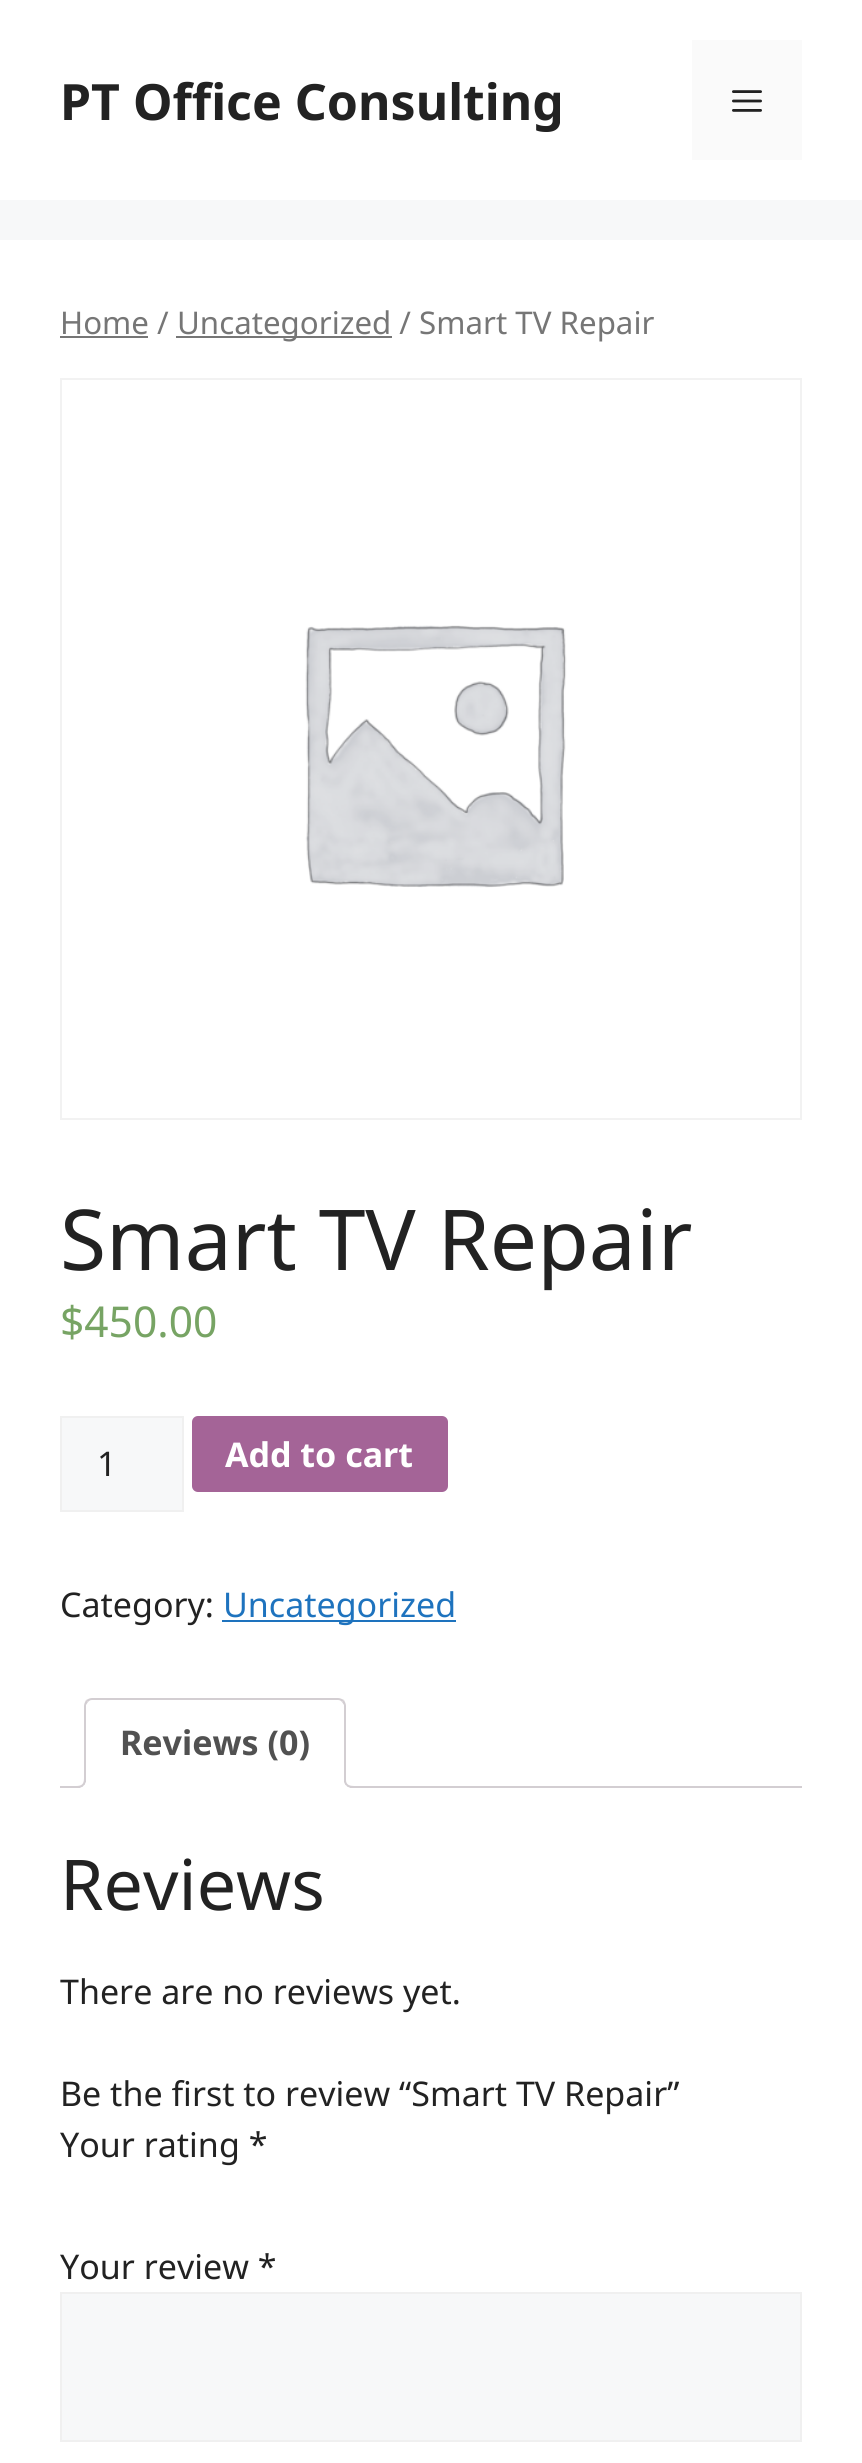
#include <cairo.h>
#include <math.h>
#include <stddef.h>


static void set_color(cairo_t *cr, unsigned color) {
    cairo_set_source_rgb(cr, (color >> 16) / 255.0, (color >> 8 & 255) / 255.0, (color & 255) / 255.0);
}

static void draw_text(cairo_t *cr, double x, double y, const char *s, const char *family, double size, int italic, int bold, unsigned color) {
    cairo_select_font_face(cr, family, italic ? CAIRO_FONT_SLANT_ITALIC : CAIRO_FONT_SLANT_NORMAL,
        bold ? CAIRO_FONT_WEIGHT_BOLD : CAIRO_FONT_WEIGHT_NORMAL);
    cairo_set_font_size(cr, size);
    set_color(cr, color);
    cairo_move_to(cr, x, y);
    cairo_show_text(cr, s);
}

static void fill_rect(cairo_t *cr, double x, double y, double w, double h, unsigned color) {
    set_color(cr, color);
    cairo_rectangle(cr, x, y, w, h);
    cairo_fill(cr);
}

static void rounded_rect(cairo_t *cr, double x, double y, double w, double h, double r) {
    cairo_new_sub_path(cr);
    cairo_arc(cr, x + w - r, y + h - r, r, 0, M_PI / 2);
    cairo_arc(cr, x + r, y + h - r, r, M_PI / 2, M_PI);
    cairo_arc(cr, x + r, y + r, r, M_PI, 1.5 * M_PI);
    cairo_arc(cr, x + w - r, y + r, r, 1.5 * M_PI, 2 * M_PI);
    cairo_close_path(cr);
}

static void draw_image(cairo_t *cr, const char *path, double x, double y, double w, double h) {
    cairo_surface_t *image = cairo_image_surface_create_from_png(path);
    cairo_save(cr);
    cairo_set_source_surface(cr, image, x, y);
    cairo_rectangle(cr, x, y, w, h);
    cairo_fill(cr);
    cairo_restore(cr);
    cairo_surface_destroy(image);
}

int main(void) {
    cairo_surface_t *surface = cairo_image_surface_create(CAIRO_FORMAT_RGB24, 862, 2463);
    cairo_t *cr = cairo_create(surface);
    cairo_font_options_t *options = cairo_font_options_create();
    cairo_font_options_set_hint_metrics(options, CAIRO_HINT_METRICS_OFF);
    cairo_font_options_set_hint_style(options, CAIRO_HINT_STYLE_NONE);
    cairo_set_font_options(cr, options);
    cairo_set_miter_limit(cr, 4);
    set_color(cr, 0xF7F8F9);
    cairo_paint(cr);
    fill_rect(cr, 0, 0, 862, 200, 0xFFFFFF);
    draw_text(cr, 60, 120, "PT Office Consulting", "Noto Sans", 50, 0, 1, 0x222222);
    fill_rect(cr, 692, 40, 110, 120, 0xFAFAFA);
    draw_image(cr, "assets/img1.png", 732, 90, 30, 22);
    fill_rect(cr, 0, 240, 862, 2223, 0xFFFFFF);
    draw_text(cr, 60, 334, "Home /", "Noto Sans", 31.25, 0, 0, 0x767676);
    fill_rect(cr, 60, 336, 88, 2, 0x767676);
    fill_rect(cr, 176, 336, 216, 2, 0x767676);
    draw_text(cr, 177, 334, "Uncategorized / Smart TV Repair", "Noto Sans", 31.25, 0, 0, 0x767676);
    cairo_rectangle(cr, 61, 379, 740, 740);
    set_color(cr, 0xF2F2F2);
    cairo_stroke(cr);
    draw_image(cr, "assets/img2.png", 305, 625, 262, 263);
    draw_text(cr, 60, 1270, "Smart TV Repair", "Noto Sans", 84, 0, 0, 0x222222);
    draw_text(cr, 60, 1337, "$450.00", "Noto Sans", 42.5, 0, 0, 0x77A464);
    set_color(cr, 0xF7F8F9);
    cairo_rectangle(cr, 61, 1417, 122, 94);
    cairo_fill_preserve(cr);
    set_color(cr, 0xF0F0F0);
    cairo_stroke(cr);
    draw_text(cr, 97, 1476, "1", "Noto Sans", 34, 0, 0, 0x222222);
    set_color(cr, 0xA46497);
    rounded_rect(cr, 192, 1416, 256, 76, 6);
    cairo_fill(cr);
    draw_text(cr, 225, 1467, "Add to cart", "Noto Sans", 34, 0, 1, 0xFFFFFF);
    draw_text(cr, 60, 1617, "Category:", "Noto Sans", 34, 0, 0, 0x222222);
    fill_rect(cr, 222, 1620, 234, 2, 0x1E73BE);
    draw_text(cr, 223, 1617, "Uncategorized", "Noto Sans", 34, 0, 0, 0x1E73BE);
    fill_rect(cr, 60, 1786, 742, 2, 0xD3CED2);
    set_color(cr, 0xFFFFFF);
    cairo_new_path(cr);
    cairo_move_to(cr, 92, 1698);
    cairo_line_to(cr, 338, 1698);
    cairo_curve_to(cr, 342.5, 1698, 346, 1701.5, 346, 1706);
    cairo_line_to(cr, 346, 1788);
    cairo_line_to(cr, 84, 1788);
    cairo_line_to(cr, 84, 1706);
    cairo_curve_to(cr, 84, 1701.5, 87.5, 1698, 92, 1698);
    cairo_close_path(cr);
    cairo_fill(cr);
    set_color(cr, 0xD3CED2);
    cairo_new_path(cr);
    cairo_move_to(cr, 92, 1698);
    cairo_curve_to(cr, 90, 1698, 88, 1699, 86, 1700);
    cairo_line_to(cr, 88, 1702);
    cairo_curve_to(cr, 89, 1701, 90, 1700, 92, 1700);
    cairo_line_to(cr, 338, 1700);
    cairo_curve_to(cr, 340, 1700, 341, 1701, 342, 1702);
    cairo_line_to(cr, 344, 1700);
    cairo_curve_to(cr, 342, 1699, 340, 1698, 338, 1698);
    cairo_close_path(cr);
    cairo_fill(cr);
    cairo_new_path(cr);
    cairo_move_to(cr, 346, 1788);
    cairo_line_to(cr, 346, 1706);
    cairo_curve_to(cr, 346, 1704, 345, 1702, 344, 1700);
    cairo_line_to(cr, 342, 1702);
    cairo_line_to(cr, 344, 1705);
    cairo_line_to(cr, 344, 1786);
    cairo_close_path(cr);
    cairo_fill(cr);
    set_color(cr, 0xFFFFFF);
    cairo_new_path(cr);
    cairo_move_to(cr, 346, 1788);
    cairo_line_to(cr, 344, 1786);
    cairo_line_to(cr, 86, 1786);
    cairo_line_to(cr, 84, 1788);
    cairo_close_path(cr);
    cairo_fill(cr);
    set_color(cr, 0xD3CED2);
    cairo_new_path(cr);
    cairo_move_to(cr, 84, 1788);
    cairo_line_to(cr, 86, 1786);
    cairo_line_to(cr, 86, 1705);
    cairo_line_to(cr, 88, 1702);
    cairo_line_to(cr, 86, 1700);
    cairo_curve_to(cr, 85, 1702, 84, 1704, 84, 1706);
    cairo_close_path(cr);
    cairo_fill(cr);
    draw_text(cr, 120, 1755, "Reviews (0)", "Noto Sans", 34, 0, 1, 0x515151);
    cairo_save(cr);
    cairo_rectangle(cr, 60, 1698, 742, 90);
    cairo_clip(cr);
    set_color(cr, 0xFFFFFF);
    cairo_new_path(cr);
    cairo_move_to(cr, 80, 1787.5);
    cairo_line_to(cr, 80, 1792);
    cairo_curve_to(cr, 87, 1792, 90, 1789, 90, 1782);
    cairo_line_to(cr, 85.5, 1782);
    cairo_curve_to(cr, 85, 1785, 83, 1787, 80, 1787.5);
    cairo_close_path(cr);
    cairo_fill(cr);
    cairo_restore(cr);
    set_color(cr, 0xD3CED2);
    cairo_set_fill_rule(cr, CAIRO_FILL_RULE_EVEN_ODD);
    cairo_new_path(cr);
    cairo_move_to(cr, 76, 1778);
    cairo_line_to(cr, 86, 1778);
    cairo_curve_to(cr, 86, 1785, 83, 1788, 76, 1788);
    cairo_close_path(cr);
    cairo_move_to(cr, 76, 1778);
    cairo_line_to(cr, 84, 1778);
    cairo_curve_to(cr, 84, 1784, 82, 1786, 76, 1786);
    cairo_close_path(cr);
    cairo_fill(cr);
    cairo_save(cr);
    cairo_set_fill_rule(cr, CAIRO_FILL_RULE_WINDING);
    cairo_rectangle(cr, 60, 1698, 742, 90);
    cairo_clip(cr);
    set_color(cr, 0xFFFFFF);
    cairo_new_path(cr);
    cairo_move_to(cr, 340, 1782);
    cairo_curve_to(cr, 340, 1789, 343, 1792, 350, 1792);
    cairo_line_to(cr, 350, 1787.5);
    cairo_curve_to(cr, 347, 1787, 345, 1785, 344.5, 1782);
    cairo_close_path(cr);
    cairo_fill(cr);
    cairo_restore(cr);
    cairo_new_path(cr);
    cairo_move_to(cr, 344, 1778);
    cairo_line_to(cr, 354, 1778);
    cairo_line_to(cr, 354, 1788);
    cairo_curve_to(cr, 349, 1788, 344, 1786, 344, 1780);
    cairo_close_path(cr);
    cairo_move_to(cr, 346, 1778);
    cairo_line_to(cr, 354, 1778);
    cairo_line_to(cr, 354, 1786);
    cairo_curve_to(cr, 350, 1786, 346, 1785, 346, 1780);
    cairo_close_path(cr);
    cairo_fill(cr);
    draw_text(cr, 60, 1910, "Reviews", "Noto Sans", 70, 0, 0, 0x222222);
    draw_text(cr, 60, 2004, "There are no reviews yet.", "Noto Sans", 34, 0, 0, 0x222222);
    draw_text(cr, 60, 2106, "Be the first to review “Smart TV Repair”", "Noto Sans", 34, 0, 0, 0x222222);
    draw_text(cr, 60, 2157, "Your rating *", "Noto Sans", 34, 0, 0, 0x222222);
    draw_text(cr, 60, 2279, "Your review *", "Noto Sans", 34, 0, 0, 0x222222);
    set_color(cr, 0xF7F8F9);
    cairo_rectangle(cr, 61, 2293, 740, 148);
    cairo_fill_preserve(cr);
    set_color(cr, 0xF0F0F0);
    cairo_stroke(cr);
    cairo_surface_write_to_png(surface, "output.png");
    cairo_font_options_destroy(options);
    cairo_destroy(cr);
    cairo_surface_destroy(surface);
    return 0;
}
